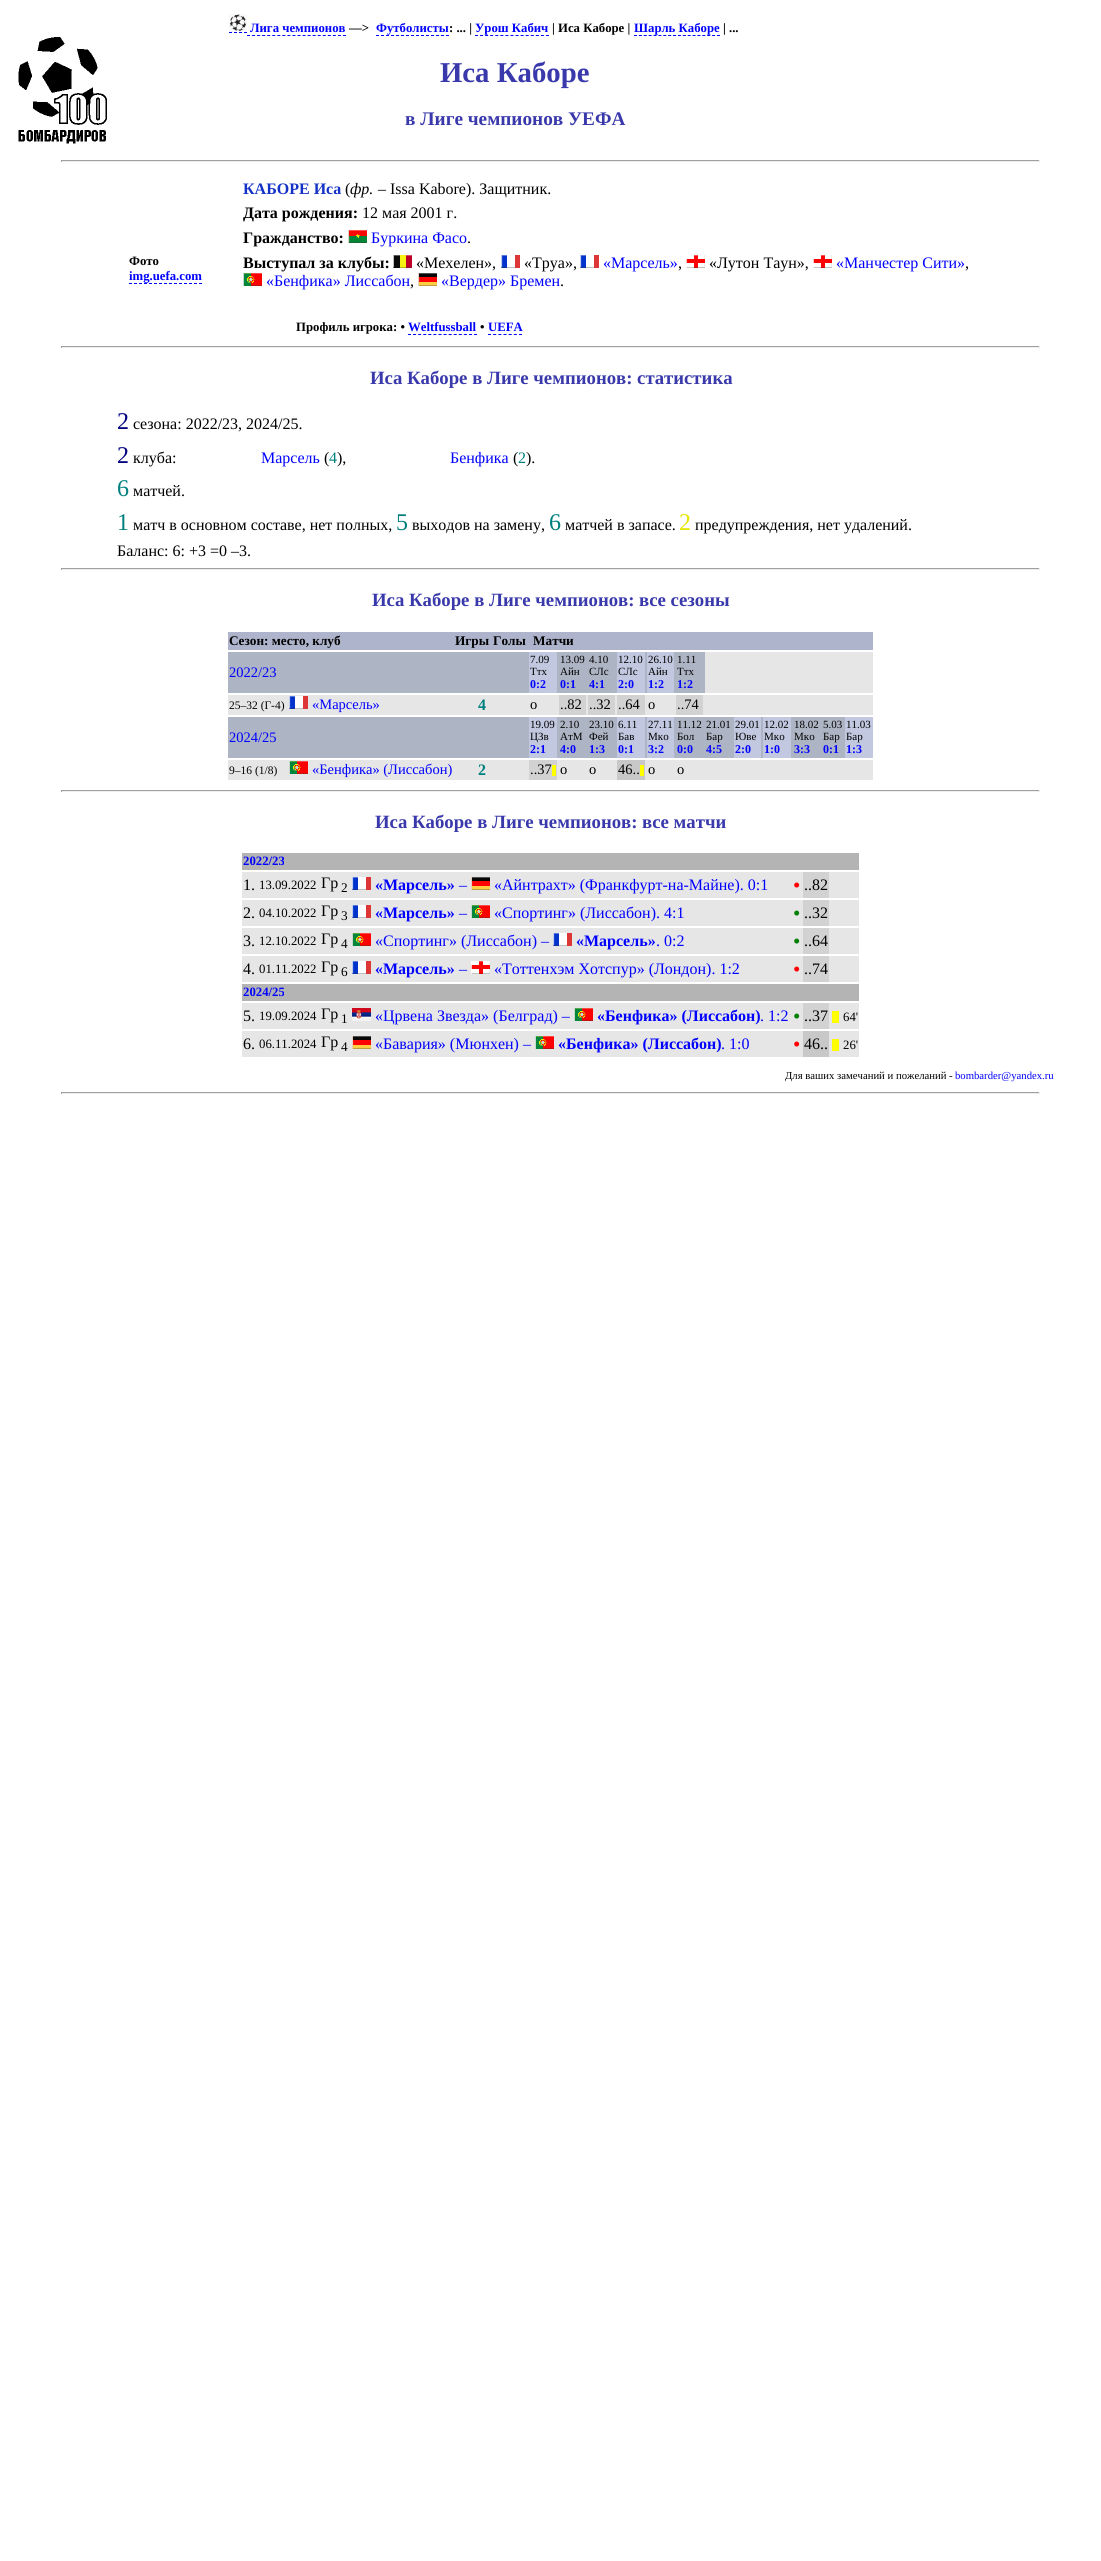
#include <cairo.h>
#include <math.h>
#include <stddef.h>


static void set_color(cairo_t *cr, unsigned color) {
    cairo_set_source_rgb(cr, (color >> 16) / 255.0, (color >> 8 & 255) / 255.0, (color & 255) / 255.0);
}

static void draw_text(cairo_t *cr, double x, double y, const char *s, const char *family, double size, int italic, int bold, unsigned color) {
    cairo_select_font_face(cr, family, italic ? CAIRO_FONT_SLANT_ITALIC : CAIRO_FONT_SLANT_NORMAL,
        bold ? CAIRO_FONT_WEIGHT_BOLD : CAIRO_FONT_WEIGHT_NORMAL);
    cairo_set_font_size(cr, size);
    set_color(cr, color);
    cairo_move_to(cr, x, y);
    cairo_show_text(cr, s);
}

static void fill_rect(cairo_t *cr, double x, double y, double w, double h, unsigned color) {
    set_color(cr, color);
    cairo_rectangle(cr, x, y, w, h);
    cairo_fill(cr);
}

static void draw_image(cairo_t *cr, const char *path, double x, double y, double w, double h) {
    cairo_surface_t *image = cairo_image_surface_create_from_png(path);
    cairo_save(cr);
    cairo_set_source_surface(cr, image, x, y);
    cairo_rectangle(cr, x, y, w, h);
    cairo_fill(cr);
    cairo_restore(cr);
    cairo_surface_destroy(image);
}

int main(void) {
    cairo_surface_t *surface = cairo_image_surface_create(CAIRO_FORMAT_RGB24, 1101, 2561);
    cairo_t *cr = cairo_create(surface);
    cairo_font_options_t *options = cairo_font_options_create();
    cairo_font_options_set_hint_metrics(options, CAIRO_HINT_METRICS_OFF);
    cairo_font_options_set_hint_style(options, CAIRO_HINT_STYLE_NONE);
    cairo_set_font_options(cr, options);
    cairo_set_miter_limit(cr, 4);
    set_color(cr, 0xFFFFFF);
    cairo_paint(cr);
    draw_image(cr, "assets/img1.png", 18, 37, 89, 107);
    draw_image(cr, "assets/img2.png", 229, 14, 18, 18);
    draw_text(cr, 250, 32, "Лига чемпионов", "Liberation Serif", 12.75, 0, 1, 0x0000FF);
    cairo_new_path(cr);
    cairo_move_to(cr, 229, 32.5);
    cairo_line_to(cr, 247, 32.5);
    cairo_set_line_width(cr, 1);
    cairo_set_dash(cr, (double[]){3, 2}, 2, 0);
    cairo_stroke(cr);
    cairo_new_path(cr);
    cairo_move_to(cr, 247, 35.5);
    cairo_line_to(cr, 346, 35.5);
    cairo_set_dash(cr, (double[]){3, 2.05}, 2, 0);
    cairo_stroke(cr);
    draw_text(cr, 349, 32, "—>", "Liberation Serif", 12.75, 0, 1, 0x000000);
    draw_text(cr, 376, 32, "Футболисты", "Liberation Serif", 12.75, 0, 1, 0x0000FF);
    cairo_new_path(cr);
    cairo_move_to(cr, 376, 35.5);
    cairo_line_to(cr, 449, 35.5);
    cairo_set_dash(cr, (double[]){3, 2}, 2, 0);
    cairo_stroke(cr);
    draw_text(cr, 449, 32, ": ... |", "Liberation Serif", 12.75, 0, 1, 0x000000);
    draw_text(cr, 475, 32, "Урош Кабич", "Liberation Serif", 12.75, 0, 1, 0x0000FF);
    cairo_new_path(cr);
    cairo_move_to(cr, 475, 35.5);
    cairo_line_to(cr, 549, 35.5);
    cairo_set_dash(cr, (double[]){3, 2.07}, 2, 0);
    cairo_stroke(cr);
    draw_text(cr, 552, 32, "| Иса Каборе |", "Liberation Serif", 12.75, 0, 1, 0x000000);
    draw_text(cr, 634, 32, "Шарль Каборе", "Liberation Serif", 12.75, 0, 1, 0x0000FF);
    cairo_new_path(cr);
    cairo_move_to(cr, 634, 35.5);
    cairo_line_to(cr, 720, 35.5);
    cairo_set_dash(cr, (double[]){3, 1.88}, 2, 0);
    cairo_stroke(cr);
    draw_text(cr, 723, 32, "| ...", "Liberation Serif", 12.75, 0, 1, 0x000000);
    draw_text(cr, 440, 82, "Иса Каборе", "Liberation Serif", 28.75, 0, 1, 0x3939AC);
    draw_text(cr, 405, 125, "в Лиге чемпионов УЕФА", "Liberation Serif", 19.25, 0, 1, 0x3939AC);
    fill_rect(cr, 61, 160, 979, 1, 0x9F9F9F);
    fill_rect(cr, 1039, 160, 1, 2, 0xEEEEEE);
    fill_rect(cr, 61, 161, 979, 1, 0xEEEEEE);
    fill_rect(cr, 61, 160, 1, 2, 0x9F9F9F);
    draw_text(cr, 129, 265, "Фото", "Liberation Serif", 12.75, 0, 1, 0x000000);
    draw_text(cr, 129, 280, "img.uefa.com", "Liberation Serif", 12.75, 0, 1, 0x0000FF);
    cairo_new_path(cr);
    cairo_move_to(cr, 129, 283.5);
    cairo_line_to(cr, 202, 283.5);
    cairo_set_dash(cr, (double[]){3, 2}, 2, 0);
    cairo_stroke(cr);
    draw_text(cr, 243, 194, "КАБОРЕ Иса", "Liberation Serif", 16, 0, 1, 0x1432C8);
    draw_text(cr, 345, 194, "(", "Liberation Serif", 16, 0, 0, 0x000000);
    draw_text(cr, 350, 194, "фр.", "Liberation Serif", 16, 1, 0, 0x000000);
    draw_text(cr, 378, 194, "– Issa Kabore). Защитник.", "Liberation Serif", 16, 0, 0, 0x000000);
    draw_text(cr, 243, 218, "Дата рождения:", "Liberation Serif", 16, 0, 1, 0x000000);
    draw_text(cr, 362, 218, "12 мая 2001 г.", "Liberation Serif", 16, 0, 0, 0x000000);
    draw_text(cr, 243, 243, "Гражданство:", "Liberation Serif", 16, 0, 1, 0x000000);
    draw_image(cr, "assets/img3.png", 348, 230, 19, 13);
    draw_text(cr, 371, 243, "Буркина Фасо", "Liberation Serif", 16, 0, 0, 0x0000FF);
    draw_text(cr, 467, 243, ".", "Liberation Serif", 16, 0, 0, 0x000000);
    draw_text(cr, 243, 268, "Выступал за клубы:", "Liberation Serif", 16, 0, 1, 0x000000);
    draw_image(cr, "assets/img4.png", 393, 255, 19, 13);
    draw_text(cr, 416, 268, "«Мехелен»,", "Liberation Serif", 16, 0, 0, 0x000000);
    draw_image(cr, "assets/img5.png", 501, 255, 19, 13);
    draw_text(cr, 524, 268, "«Труа»,", "Liberation Serif", 16, 0, 0, 0x000000);
    draw_image(cr, "assets/img5.png", 580, 255, 19, 13);
    draw_text(cr, 603, 268, "«Марсель»", "Liberation Serif", 16, 0, 0, 0x0000FF);
    draw_text(cr, 678, 268, ",", "Liberation Serif", 16, 0, 0, 0x000000);
    draw_image(cr, "assets/img6.png", 686, 255, 19, 13);
    draw_text(cr, 709, 268, "«Лутон Таун»,", "Liberation Serif", 16, 0, 0, 0x000000);
    draw_image(cr, "assets/img6.png", 813, 255, 19, 13);
    draw_text(cr, 836, 268, "«Манчестер Сити»", "Liberation Serif", 16, 0, 0, 0x0000FF);
    draw_text(cr, 965, 268, ",", "Liberation Serif", 16, 0, 0, 0x000000);
    draw_image(cr, "assets/img7.png", 243, 273, 19, 13);
    draw_text(cr, 266, 286, "«Бенфика» Лиссабон", "Liberation Serif", 16, 0, 0, 0x0000FF);
    draw_text(cr, 410, 286, ",", "Liberation Serif", 16, 0, 0, 0x000000);
    draw_image(cr, "assets/img8.png", 418, 273, 19, 13);
    draw_text(cr, 441, 286, "«Вердер» Бремен", "Liberation Serif", 16, 0, 0, 0x0000FF);
    draw_text(cr, 560, 286, ".", "Liberation Serif", 16, 0, 0, 0x000000);
    draw_text(cr, 296, 331, "Профиль игрока: •", "Liberation Serif", 12.75, 0, 1, 0x000000);
    draw_text(cr, 408, 331, "Weltfussball", "Liberation Serif", 12.75, 0, 1, 0x0000FF);
    cairo_new_path(cr);
    cairo_move_to(cr, 408, 334.5);
    cairo_line_to(cr, 477, 334.5);
    cairo_set_dash(cr, (double[]){3, 2.08}, 2, 0);
    cairo_stroke(cr);
    draw_text(cr, 480, 331, "•", "Liberation Serif", 12.75, 0, 1, 0x000000);
    draw_text(cr, 488, 331, "UEFA", "Liberation Serif", 12.75, 0, 1, 0x0000FF);
    cairo_new_path(cr);
    cairo_move_to(cr, 488, 334.5);
    cairo_line_to(cr, 522, 334.5);
    cairo_set_dash(cr, (double[]){3, 2.17}, 2, 0);
    cairo_stroke(cr);
    fill_rect(cr, 61, 346, 979, 1, 0x9F9F9F);
    fill_rect(cr, 1039, 346, 1, 2, 0xEEEEEE);
    fill_rect(cr, 61, 347, 979, 1, 0xEEEEEE);
    fill_rect(cr, 61, 346, 1, 2, 0x9F9F9F);
    draw_text(cr, 370, 384, "Иса Каборе в Лиге чемпионов: статистика", "Liberation Serif", 18.75, 0, 1, 0x3939AC);
    draw_text(cr, 117, 429, "2", "Liberation Serif", 24, 0, 0, 0x00007F);
    draw_text(cr, 133, 429, "сезона: 2022/23, 2024/25.", "Liberation Serif", 16, 0, 0, 0x000000);
    draw_text(cr, 117, 463, "2", "Liberation Serif", 24, 0, 0, 0x00007F);
    draw_text(cr, 133, 463, "клуба:", "Liberation Serif", 16, 0, 0, 0x000000);
    draw_text(cr, 261, 463, "Марсель", "Liberation Serif", 16, 0, 0, 0x0000FF);
    draw_text(cr, 324, 463, "(", "Liberation Serif", 16, 0, 0, 0x000000);
    draw_text(cr, 329, 463, "4", "Liberation Serif", 16, 0, 0, 0x007F7F);
    draw_text(cr, 337, 463, "),", "Liberation Serif", 16, 0, 0, 0x000000);
    draw_text(cr, 450, 463, "Бенфика", "Liberation Serif", 16, 0, 0, 0x0000FF);
    draw_text(cr, 513, 463, "(", "Liberation Serif", 16, 0, 0, 0x000000);
    draw_text(cr, 518, 463, "2", "Liberation Serif", 16, 0, 0, 0x007F7F);
    draw_text(cr, 526, 463, ").", "Liberation Serif", 16, 0, 0, 0x000000);
    draw_text(cr, 117, 496, "6", "Liberation Serif", 24, 0, 0, 0x007F7F);
    draw_text(cr, 133, 496, "матчей.", "Liberation Serif", 16, 0, 0, 0x000000);
    draw_text(cr, 117, 530, "1", "Liberation Serif", 24, 0, 0, 0x007F7F);
    draw_text(cr, 133, 530, "матч в основном составе, нет полных,", "Liberation Serif", 16, 0, 0, 0x000000);
    draw_text(cr, 396, 530, "5", "Liberation Serif", 24, 0, 0, 0x007F7F);
    draw_text(cr, 412, 530, "выходов на замену,", "Liberation Serif", 16, 0, 0, 0x000000);
    draw_text(cr, 549, 530, "6", "Liberation Serif", 24, 0, 0, 0x007F7F);
    draw_text(cr, 565, 530, "матчей в запасе.", "Liberation Serif", 16, 0, 0, 0x000000);
    draw_text(cr, 679, 530, "2", "Liberation Serif", 24, 0, 0, 0xE6E600);
    draw_text(cr, 695, 530, "предупреждения, нет удалений.", "Liberation Serif", 16, 0, 0, 0x000000);
    draw_text(cr, 117, 556, "Баланс: 6: +3 =0 –3.", "Liberation Serif", 16, 0, 0, 0x000000);
    fill_rect(cr, 61, 568, 979, 1, 0x9F9F9F);
    fill_rect(cr, 1039, 568, 1, 2, 0xEEEEEE);
    fill_rect(cr, 61, 569, 979, 1, 0xEEEEEE);
    fill_rect(cr, 61, 568, 1, 2, 0x9F9F9F);
    draw_text(cr, 372, 606, "Иса Каборе в Лиге чемпионов: все сезоны", "Liberation Serif", 18.75, 0, 1, 0x3939AC);
    fill_rect(cr, 228, 632, 645, 18, 0xADB4CB);
    draw_text(cr, 229, 645, "Сезон: место, клуб", "Liberation Serif", 13.25, 0, 1, 0x000000);
    draw_text(cr, 455, 645, "Игры", "Liberation Serif", 13.25, 0, 1, 0x000000);
    draw_text(cr, 493, 645, "Голы", "Liberation Serif", 13.25, 0, 1, 0x000000);
    draw_text(cr, 533, 645, "Матчи", "Liberation Serif", 13.25, 0, 1, 0x000000);
    fill_rect(cr, 228, 652, 477, 41, 0xADB4C3);
    draw_text(cr, 229, 677, "2022/23", "Liberation Serif", 14.5, 0, 0, 0x0000FF);
    fill_rect(cr, 529, 652, 28, 41, 0xC1C8DF);
    draw_text(cr, 530, 663, "7.09", "Liberation Serif", 11, 0, 0, 0x000000);
    draw_text(cr, 530, 675, "Ттх", "Liberation Serif", 11, 0, 0, 0x000000);
    draw_text(cr, 530, 688, "0:2", "Liberation Serif", 12, 0, 1, 0x0000FF);
    draw_text(cr, 560, 663, "13.09", "Liberation Serif", 11, 0, 0, 0x000000);
    draw_text(cr, 560, 675, "Айн", "Liberation Serif", 11, 0, 0, 0x000000);
    draw_text(cr, 560, 688, "0:1", "Liberation Serif", 12, 0, 1, 0x0000FF);
    draw_text(cr, 589, 663, "4.10", "Liberation Serif", 11, 0, 0, 0x000000);
    draw_text(cr, 589, 675, "СЛс", "Liberation Serif", 11, 0, 0, 0x000000);
    draw_text(cr, 589, 688, "4:1", "Liberation Serif", 12, 0, 1, 0x0000FF);
    fill_rect(cr, 617, 652, 28, 41, 0xC1C8DF);
    draw_text(cr, 618, 663, "12.10", "Liberation Serif", 11, 0, 0, 0x000000);
    draw_text(cr, 618, 675, "СЛс", "Liberation Serif", 11, 0, 0, 0x000000);
    draw_text(cr, 618, 688, "2:0", "Liberation Serif", 12, 0, 1, 0x0000FF);
    fill_rect(cr, 647, 652, 27, 41, 0xC1C8DF);
    draw_text(cr, 648, 663, "26.10", "Liberation Serif", 11, 0, 0, 0x000000);
    draw_text(cr, 648, 675, "Айн", "Liberation Serif", 11, 0, 0, 0x000000);
    draw_text(cr, 648, 688, "1:2", "Liberation Serif", 12, 0, 1, 0x0000FF);
    draw_text(cr, 677, 663, "1.11", "Liberation Serif", 11, 0, 0, 0x000000);
    draw_text(cr, 677, 675, "Ттх", "Liberation Serif", 11, 0, 0, 0x000000);
    draw_text(cr, 677, 688, "1:2", "Liberation Serif", 12, 0, 1, 0x0000FF);
    fill_rect(cr, 705, 652, 168, 41, 0xE6E6E6);
    fill_rect(cr, 228, 695, 645, 20, 0xE6E6E6);
    draw_text(cr, 229, 709, "25–32 (Г-4)", "Liberation Serif", 11.5, 0, 0, 0x000000);
    draw_image(cr, "assets/img5.png", 289, 696, 19, 13);
    draw_text(cr, 312, 709, "«Марсель»", "Liberation Serif", 14.5, 0, 0, 0x0000FF);
    draw_text(cr, 478, 710, "4", "Liberation Serif", 16, 0, 1, 0x007F7F);
    draw_text(cr, 530, 709, "о", "Liberation Serif", 14.5, 0, 0, 0x000000);
    fill_rect(cr, 559, 695, 27, 20, 0xD2D2D2);
    draw_text(cr, 560, 709, "..82", "Liberation Serif", 14.5, 0, 0, 0x000000);
    fill_rect(cr, 588, 695, 27, 20, 0xD2D2D2);
    draw_text(cr, 589, 709, "..32", "Liberation Serif", 14.5, 0, 0, 0x000000);
    fill_rect(cr, 617, 695, 28, 20, 0xD2D2D2);
    draw_text(cr, 618, 709, "..64", "Liberation Serif", 14.5, 0, 0, 0x000000);
    draw_text(cr, 648, 709, "о", "Liberation Serif", 14.5, 0, 0, 0x000000);
    fill_rect(cr, 676, 695, 27, 20, 0xD2D2D2);
    draw_text(cr, 677, 709, "..74", "Liberation Serif", 14.5, 0, 0, 0x000000);
    fill_rect(cr, 228, 717, 617, 41, 0xADB4C3);
    draw_text(cr, 229, 742, "2024/25", "Liberation Serif", 14.5, 0, 0, 0x0000FF);
    fill_rect(cr, 529, 717, 28, 41, 0xC1C8DF);
    draw_text(cr, 530, 728, "19.09", "Liberation Serif", 11, 0, 0, 0x000000);
    draw_text(cr, 530, 740, "ЦЗв", "Liberation Serif", 11, 0, 0, 0x000000);
    draw_text(cr, 530, 753, "2:1", "Liberation Serif", 12, 0, 1, 0x0000FF);
    draw_text(cr, 560, 728, "2.10", "Liberation Serif", 11, 0, 0, 0x000000);
    draw_text(cr, 560, 740, "АтМ", "Liberation Serif", 11, 0, 0, 0x000000);
    draw_text(cr, 560, 753, "4:0", "Liberation Serif", 12, 0, 1, 0x0000FF);
    draw_text(cr, 589, 728, "23.10", "Liberation Serif", 11, 0, 0, 0x000000);
    draw_text(cr, 589, 740, "Фей", "Liberation Serif", 11, 0, 0, 0x000000);
    draw_text(cr, 589, 753, "1:3", "Liberation Serif", 12, 0, 1, 0x0000FF);
    fill_rect(cr, 617, 717, 28, 41, 0xC1C8DF);
    draw_text(cr, 618, 728, "6.11", "Liberation Serif", 11, 0, 0, 0x000000);
    draw_text(cr, 618, 740, "Бав", "Liberation Serif", 11, 0, 0, 0x000000);
    draw_text(cr, 618, 753, "0:1", "Liberation Serif", 12, 0, 1, 0x0000FF);
    fill_rect(cr, 647, 717, 27, 41, 0xC1C8DF);
    draw_text(cr, 648, 728, "27.11", "Liberation Serif", 11, 0, 0, 0x000000);
    draw_text(cr, 648, 740, "Мко", "Liberation Serif", 11, 0, 0, 0x000000);
    draw_text(cr, 648, 753, "3:2", "Liberation Serif", 12, 0, 1, 0x0000FF);
    draw_text(cr, 677, 728, "11.12", "Liberation Serif", 11, 0, 0, 0x000000);
    draw_text(cr, 677, 740, "Бол", "Liberation Serif", 11, 0, 0, 0x000000);
    draw_text(cr, 677, 753, "0:0", "Liberation Serif", 12, 0, 1, 0x0000FF);
    draw_text(cr, 706, 728, "21.01", "Liberation Serif", 11, 0, 0, 0x000000);
    draw_text(cr, 706, 740, "Бар", "Liberation Serif", 11, 0, 0, 0x000000);
    draw_text(cr, 706, 753, "4:5", "Liberation Serif", 12, 0, 1, 0x0000FF);
    fill_rect(cr, 734, 717, 27, 41, 0xC1C8DF);
    draw_text(cr, 735, 728, "29.01", "Liberation Serif", 11, 0, 0, 0x000000);
    draw_text(cr, 735, 740, "Юве", "Liberation Serif", 11, 0, 0, 0x000000);
    draw_text(cr, 735, 753, "2:0", "Liberation Serif", 12, 0, 1, 0x0000FF);
    fill_rect(cr, 763, 717, 28, 41, 0xC1C8DF);
    draw_text(cr, 764, 728, "12.02", "Liberation Serif", 11, 0, 0, 0x000000);
    draw_text(cr, 764, 740, "Мко", "Liberation Serif", 11, 0, 0, 0x000000);
    draw_text(cr, 764, 753, "1:0", "Liberation Serif", 12, 0, 1, 0x0000FF);
    draw_text(cr, 794, 728, "18.02", "Liberation Serif", 11, 0, 0, 0x000000);
    draw_text(cr, 794, 740, "Мко", "Liberation Serif", 11, 0, 0, 0x000000);
    draw_text(cr, 794, 753, "3:3", "Liberation Serif", 12, 0, 1, 0x0000FF);
    draw_text(cr, 823, 728, "5.03", "Liberation Serif", 11, 0, 0, 0x000000);
    draw_text(cr, 823, 740, "Бар", "Liberation Serif", 11, 0, 0, 0x000000);
    draw_text(cr, 823, 753, "0:1", "Liberation Serif", 12, 0, 1, 0x0000FF);
    fill_rect(cr, 845, 717, 28, 41, 0xC1C8DF);
    draw_text(cr, 846, 728, "11.03", "Liberation Serif", 11, 0, 0, 0x000000);
    draw_text(cr, 846, 740, "Бар", "Liberation Serif", 11, 0, 0, 0x000000);
    draw_text(cr, 846, 753, "1:3", "Liberation Serif", 12, 0, 1, 0x0000FF);
    fill_rect(cr, 228, 760, 645, 20, 0xE6E6E6);
    draw_text(cr, 229, 774, "9–16 (1/8)", "Liberation Serif", 11.5, 0, 0, 0x000000);
    draw_image(cr, "assets/img7.png", 289, 761, 19, 13);
    draw_text(cr, 312, 774, "«Бенфика» (Лиссабон)", "Liberation Serif", 14.5, 0, 0, 0x0000FF);
    draw_text(cr, 478, 775, "2", "Liberation Serif", 16, 0, 1, 0x007F7F);
    fill_rect(cr, 529, 760, 28, 20, 0xD2D2D2);
    draw_text(cr, 530, 774, "..37", "Liberation Serif", 14.5, 0, 0, 0x000000);
    fill_rect(cr, 552, 765, 4, 11, 0xFFFF00);
    draw_text(cr, 560, 774, "о", "Liberation Serif", 14.5, 0, 0, 0x000000);
    draw_text(cr, 589, 774, "о", "Liberation Serif", 14.5, 0, 0, 0x000000);
    fill_rect(cr, 617, 760, 28, 20, 0xC8C8C8);
    draw_text(cr, 618, 774, "46..", "Liberation Serif", 14.5, 0, 0, 0x000000);
    fill_rect(cr, 640, 765, 4, 11, 0xFFFF00);
    draw_text(cr, 648, 774, "о", "Liberation Serif", 14.5, 0, 0, 0x000000);
    draw_text(cr, 677, 774, "о", "Liberation Serif", 14.5, 0, 0, 0x000000);
    fill_rect(cr, 61, 790, 979, 1, 0x9F9F9F);
    fill_rect(cr, 1039, 790, 1, 2, 0xEEEEEE);
    fill_rect(cr, 61, 791, 979, 1, 0xEEEEEE);
    fill_rect(cr, 61, 790, 1, 2, 0x9F9F9F);
    draw_text(cr, 375, 828, "Иса Каборе в Лиге чемпионов: все матчи", "Liberation Serif", 18.75, 0, 1, 0x3939AC);
    fill_rect(cr, 242, 853, 617, 17, 0xB4B4B4);
    draw_text(cr, 243, 865, "2022/23", "Liberation Serif", 12.75, 0, 1, 0x0000FF);
    fill_rect(cr, 242, 872, 617, 26, 0xE6E6E6);
    draw_text(cr, 243, 890, "1.", "Liberation Serif", 16, 0, 0, 0x000000);
    draw_text(cr, 259, 889, "13.09.2022", "Liberation Serif", 12.75, 0, 0, 0x000000);
    draw_text(cr, 321, 888, "Гр", "Liberation Serif", 16, 0, 0, 0x000000);
    draw_text(cr, 341, 892, "2", "Liberation Serif", 13.25, 0, 0, 0x000000);
    draw_image(cr, "assets/img5.png", 352, 877, 19, 13);
    draw_text(cr, 375, 890, "«Марсель»", "Liberation Serif", 16, 0, 1, 0x0000FF);
    draw_text(cr, 459, 890, "–", "Liberation Serif", 16, 0, 0, 0x0000FF);
    draw_image(cr, "assets/img8.png", 471, 877, 19, 13);
    draw_text(cr, 494, 890, "«Айнтрахт» (Франкфурт-на-Майне). 0:1", "Liberation Serif", 16, 0, 0, 0x0000FF);
    draw_text(cr, 793, 892, "•", "Liberation Serif", 21, 0, 0, 0xFF0000);
    fill_rect(cr, 803, 872, 26, 26, 0xD2D2D2);
    draw_text(cr, 804, 890, "..82", "Liberation Serif", 16, 0, 0, 0x000000);
    fill_rect(cr, 242, 900, 617, 26, 0xE6E6E6);
    draw_text(cr, 243, 918, "2.", "Liberation Serif", 16, 0, 0, 0x000000);
    draw_text(cr, 259, 917, "04.10.2022", "Liberation Serif", 12.75, 0, 0, 0x000000);
    draw_text(cr, 321, 916, "Гр", "Liberation Serif", 16, 0, 0, 0x000000);
    draw_text(cr, 341, 920, "3", "Liberation Serif", 13.25, 0, 0, 0x000000);
    draw_image(cr, "assets/img5.png", 352, 905, 19, 13);
    draw_text(cr, 375, 918, "«Марсель»", "Liberation Serif", 16, 0, 1, 0x0000FF);
    draw_text(cr, 459, 918, "–", "Liberation Serif", 16, 0, 0, 0x0000FF);
    draw_image(cr, "assets/img7.png", 471, 905, 19, 13);
    draw_text(cr, 494, 918, "«Спортинг» (Лиссабон). 4:1", "Liberation Serif", 16, 0, 0, 0x0000FF);
    draw_text(cr, 793, 920, "•", "Liberation Serif", 21, 0, 0, 0x008000);
    fill_rect(cr, 803, 900, 26, 26, 0xD2D2D2);
    draw_text(cr, 804, 918, "..32", "Liberation Serif", 16, 0, 0, 0x000000);
    fill_rect(cr, 242, 928, 617, 26, 0xE6E6E6);
    draw_text(cr, 243, 946, "3.", "Liberation Serif", 16, 0, 0, 0x000000);
    draw_text(cr, 259, 945, "12.10.2022", "Liberation Serif", 12.75, 0, 0, 0x000000);
    draw_text(cr, 321, 944, "Гр", "Liberation Serif", 16, 0, 0, 0x000000);
    draw_text(cr, 341, 948, "4", "Liberation Serif", 13.25, 0, 0, 0x000000);
    draw_image(cr, "assets/img7.png", 352, 933, 19, 13);
    draw_text(cr, 375, 946, "«Спортинг» (Лиссабон) –", "Liberation Serif", 16, 0, 0, 0x0000FF);
    draw_image(cr, "assets/img5.png", 553, 933, 19, 13);
    draw_text(cr, 576, 946, "«Марсель»", "Liberation Serif", 16, 0, 1, 0x0000FF);
    draw_text(cr, 656, 946, ". 0:2", "Liberation Serif", 16, 0, 0, 0x0000FF);
    draw_text(cr, 793, 948, "•", "Liberation Serif", 21, 0, 0, 0x008000);
    fill_rect(cr, 803, 928, 26, 26, 0xD2D2D2);
    draw_text(cr, 804, 946, "..64", "Liberation Serif", 16, 0, 0, 0x000000);
    fill_rect(cr, 242, 956, 617, 26, 0xE6E6E6);
    draw_text(cr, 243, 974, "4.", "Liberation Serif", 16, 0, 0, 0x000000);
    draw_text(cr, 259, 973, "01.11.2022", "Liberation Serif", 12.75, 0, 0, 0x000000);
    draw_text(cr, 321, 972, "Гр", "Liberation Serif", 16, 0, 0, 0x000000);
    draw_text(cr, 341, 976, "6", "Liberation Serif", 13.25, 0, 0, 0x000000);
    draw_image(cr, "assets/img5.png", 352, 961, 19, 13);
    draw_text(cr, 375, 974, "«Марсель»", "Liberation Serif", 16, 0, 1, 0x0000FF);
    draw_text(cr, 459, 974, "–", "Liberation Serif", 16, 0, 0, 0x0000FF);
    draw_image(cr, "assets/img6.png", 471, 961, 19, 13);
    draw_text(cr, 494, 974, "«Тоттенхэм Хотспур» (Лондон). 1:2", "Liberation Serif", 16, 0, 0, 0x0000FF);
    draw_text(cr, 793, 976, "•", "Liberation Serif", 21, 0, 0, 0xFF0000);
    fill_rect(cr, 803, 956, 26, 26, 0xD2D2D2);
    draw_text(cr, 804, 974, "..74", "Liberation Serif", 16, 0, 0, 0x000000);
    fill_rect(cr, 242, 984, 617, 17, 0xB4B4B4);
    draw_text(cr, 243, 996, "2024/25", "Liberation Serif", 12.75, 0, 1, 0x0000FF);
    fill_rect(cr, 242, 1003, 617, 26, 0xE6E6E6);
    draw_text(cr, 243, 1021, "5.", "Liberation Serif", 16, 0, 0, 0x000000);
    draw_text(cr, 259, 1020, "19.09.2024", "Liberation Serif", 12.75, 0, 0, 0x000000);
    draw_text(cr, 321, 1019, "Гр", "Liberation Serif", 16, 0, 0, 0x000000);
    draw_text(cr, 341, 1023, "1", "Liberation Serif", 13.25, 0, 0, 0x000000);
    draw_image(cr, "assets/img9.png", 352, 1008, 19, 13);
    draw_text(cr, 375, 1021, "«Црвена Звезда» (Белград) –", "Liberation Serif", 16, 0, 0, 0x0000FF);
    draw_image(cr, "assets/img7.png", 574, 1008, 19, 13);
    draw_text(cr, 597, 1021, "«Бенфика» (Лиссабон)", "Liberation Serif", 16, 0, 1, 0x0000FF);
    draw_text(cr, 760, 1021, ". 1:2", "Liberation Serif", 16, 0, 0, 0x0000FF);
    draw_text(cr, 793, 1023, "•", "Liberation Serif", 21, 0, 0, 0x008000);
    fill_rect(cr, 803, 1003, 26, 26, 0xD2D2D2);
    draw_text(cr, 804, 1021, "..37", "Liberation Serif", 16, 0, 0, 0x000000);
    fill_rect(cr, 832, 1011, 7, 12, 0xFFFF00);
    draw_text(cr, 843, 1021, "64'", "Liberation Serif", 12.75, 0, 0, 0x000000);
    fill_rect(cr, 242, 1031, 617, 26, 0xE6E6E6);
    draw_text(cr, 243, 1049, "6.", "Liberation Serif", 16, 0, 0, 0x000000);
    draw_text(cr, 259, 1048, "06.11.2024", "Liberation Serif", 12.75, 0, 0, 0x000000);
    draw_text(cr, 321, 1047, "Гр", "Liberation Serif", 16, 0, 0, 0x000000);
    draw_text(cr, 341, 1051, "4", "Liberation Serif", 13.25, 0, 0, 0x000000);
    draw_image(cr, "assets/img8.png", 352, 1036, 19, 13);
    draw_text(cr, 375, 1049, "«Бавария» (Мюнхен) –", "Liberation Serif", 16, 0, 0, 0x0000FF);
    draw_image(cr, "assets/img7.png", 535, 1036, 19, 13);
    draw_text(cr, 558, 1049, "«Бенфика» (Лиссабон)", "Liberation Serif", 16, 0, 1, 0x0000FF);
    draw_text(cr, 721, 1049, ". 1:0", "Liberation Serif", 16, 0, 0, 0x0000FF);
    draw_text(cr, 793, 1051, "•", "Liberation Serif", 21, 0, 0, 0xFF0000);
    fill_rect(cr, 803, 1031, 26, 26, 0xC8C8C8);
    draw_text(cr, 804, 1049, "46..", "Liberation Serif", 16, 0, 0, 0x000000);
    fill_rect(cr, 832, 1039, 7, 12, 0xFFFF00);
    draw_text(cr, 843, 1049, "26'", "Liberation Serif", 12.75, 0, 0, 0x000000);
    draw_text(cr, 785, 1079, "Для ваших замечаний и пожеланий -", "Liberation Serif", 10.7, 0, 0, 0x000000);
    draw_text(cr, 955, 1079, "bombarder@yandex.ru", "Liberation Serif", 10.7, 0, 0, 0x0000FF);
    fill_rect(cr, 61, 1092, 979, 1, 0x9F9F9F);
    fill_rect(cr, 1039, 1092, 1, 2, 0xEEEEEE);
    fill_rect(cr, 61, 1093, 979, 1, 0xEEEEEE);
    fill_rect(cr, 61, 1092, 1, 2, 0x9F9F9F);
    cairo_surface_write_to_png(surface, "output.png");
    cairo_font_options_destroy(options);
    cairo_destroy(cr);
    cairo_surface_destroy(surface);
    return 0;
}
